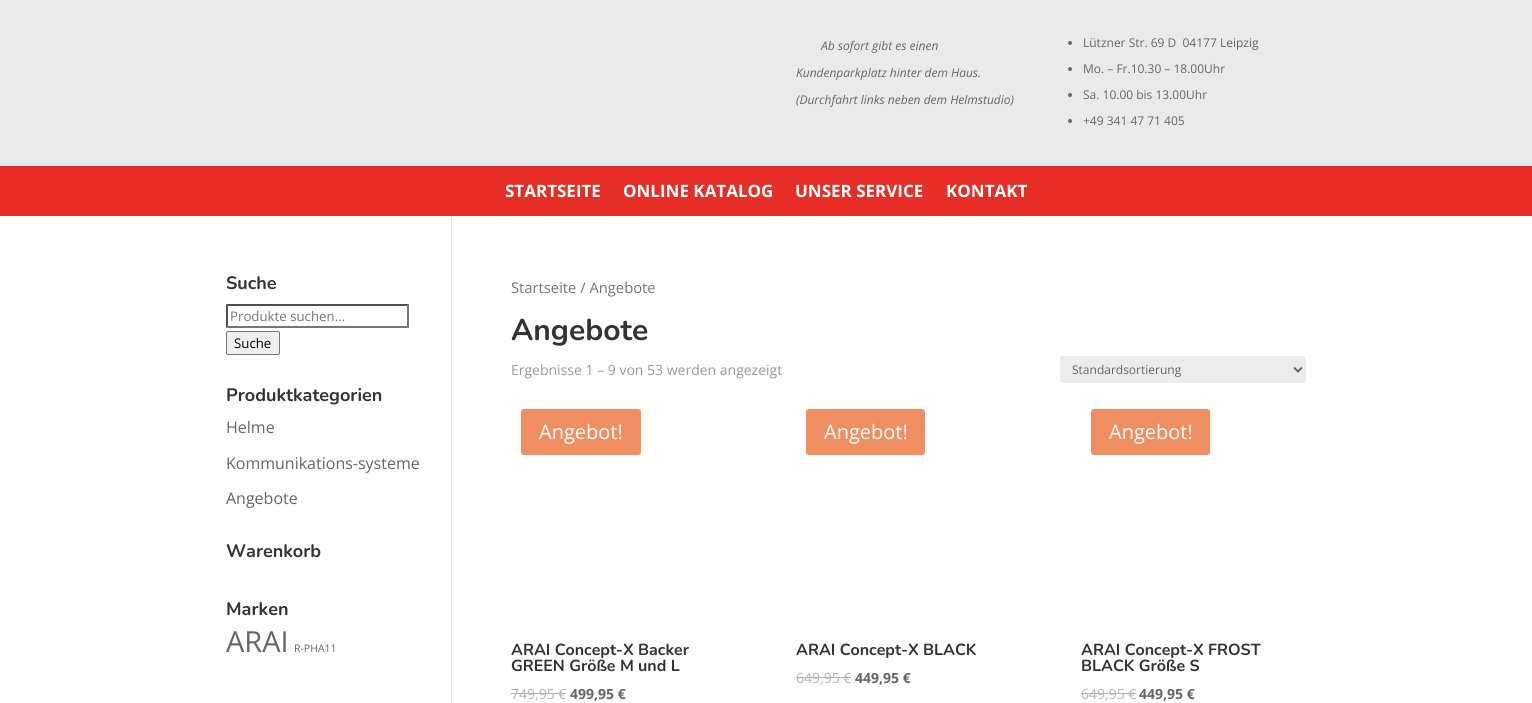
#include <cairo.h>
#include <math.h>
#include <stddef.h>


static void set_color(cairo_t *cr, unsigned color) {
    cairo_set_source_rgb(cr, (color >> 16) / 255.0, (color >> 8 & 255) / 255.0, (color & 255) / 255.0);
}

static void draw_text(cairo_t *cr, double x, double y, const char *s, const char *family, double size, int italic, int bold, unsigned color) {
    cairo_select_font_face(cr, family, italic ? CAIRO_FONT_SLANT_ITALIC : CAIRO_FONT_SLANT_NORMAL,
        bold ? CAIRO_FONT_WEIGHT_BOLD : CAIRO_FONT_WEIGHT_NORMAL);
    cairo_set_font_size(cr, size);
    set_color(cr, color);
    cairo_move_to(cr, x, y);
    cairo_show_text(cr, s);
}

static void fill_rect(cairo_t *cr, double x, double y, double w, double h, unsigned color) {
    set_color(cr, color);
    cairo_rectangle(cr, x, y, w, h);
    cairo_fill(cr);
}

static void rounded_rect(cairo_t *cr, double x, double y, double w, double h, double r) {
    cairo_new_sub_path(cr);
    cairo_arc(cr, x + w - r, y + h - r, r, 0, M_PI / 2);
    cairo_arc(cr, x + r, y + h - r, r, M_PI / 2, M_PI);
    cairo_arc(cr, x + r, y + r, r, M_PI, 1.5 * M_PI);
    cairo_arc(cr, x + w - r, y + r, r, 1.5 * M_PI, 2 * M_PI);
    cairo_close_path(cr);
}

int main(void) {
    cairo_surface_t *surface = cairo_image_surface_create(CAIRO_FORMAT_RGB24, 1532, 703);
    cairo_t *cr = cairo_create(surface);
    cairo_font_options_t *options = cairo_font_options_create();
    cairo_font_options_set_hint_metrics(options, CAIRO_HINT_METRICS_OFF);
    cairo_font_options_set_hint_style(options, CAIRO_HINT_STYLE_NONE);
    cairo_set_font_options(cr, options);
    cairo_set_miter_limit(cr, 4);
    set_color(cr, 0xFFFFFF);
    cairo_paint(cr);
    fill_rect(cr, 0, 0, 1532, 166, 0xEAEAEA);
    draw_text(cr, 821, 50, "Ab sofort gibt es einen", "Open Sans", 12, 1, 0, 0x666666);
    draw_text(cr, 796, 77, "Kundenparkplatz hinter dem Haus.", "Open Sans", 12, 1, 0, 0x666666);
    draw_text(cr, 796, 104, "(Durchfahrt links neben dem Helmstudio)", "Open Sans", 12, 1, 0, 0x666666);
    cairo_new_path(cr);
    cairo_arc(cr, 1070, 43, 2, 0, 2 * M_PI);
    cairo_fill(cr);
    draw_text(cr, 1083, 47, "Lützner Str. 69 D  04177 Leipzig", "Open Sans", 12, 0, 0, 0x666666);
    cairo_new_path(cr);
    cairo_arc(cr, 1070, 69, 2, 0, 2 * M_PI);
    cairo_fill(cr);
    draw_text(cr, 1083, 73, "Mo. – Fr.10.30 – 18.00Uhr", "Open Sans", 12, 0, 0, 0x666666);
    cairo_new_path(cr);
    cairo_arc(cr, 1070, 95, 2, 0, 2 * M_PI);
    cairo_fill(cr);
    draw_text(cr, 1083, 99, "Sa. 10.00 bis 13.00Uhr", "Open Sans", 12, 0, 0, 0x666666);
    cairo_new_path(cr);
    cairo_arc(cr, 1070, 121, 2, 0, 2 * M_PI);
    cairo_fill(cr);
    draw_text(cr, 1083, 125, "+49 341 47 71 405", "Open Sans", 12, 0, 0, 0x666666);
    fill_rect(cr, 0, 166, 1532, 50, 0xE62E26);
    draw_text(cr, 505, 197, "STARTSEITE", "Open Sans", 17, 0, 1, 0xFFFFFF);
    draw_text(cr, 623, 197, "ONLINE KATALOG", "Open Sans", 17, 0, 1, 0xFFFFFF);
    draw_text(cr, 795, 197, "UNSER SERVICE", "Open Sans", 17, 0, 1, 0xFFFFFF);
    draw_text(cr, 946, 197, "KONTAKT", "Open Sans", 17, 0, 1, 0xFFFFFF);
    fill_rect(cr, 451, 216, 1, 487, 0xE2E2E2);
    draw_text(cr, 226, 289, "Suche", "Nunito", 18, 0, 1, 0x333333);
    set_color(cr, 0x4F4F4F);
    cairo_new_path(cr);
    cairo_move_to(cr, 226, 304);
    cairo_line_to(cr, 409, 304);
    cairo_line_to(cr, 407, 306);
    cairo_line_to(cr, 228, 306);
    cairo_close_path(cr);
    cairo_fill(cr);
    set_color(cr, 0x767676);
    cairo_new_path(cr);
    cairo_move_to(cr, 409, 304);
    cairo_line_to(cr, 409, 328);
    cairo_line_to(cr, 407, 326);
    cairo_line_to(cr, 407, 306);
    cairo_close_path(cr);
    cairo_fill(cr);
    cairo_new_path(cr);
    cairo_move_to(cr, 409, 328);
    cairo_line_to(cr, 226, 328);
    cairo_line_to(cr, 228, 326);
    cairo_line_to(cr, 407, 326);
    cairo_close_path(cr);
    cairo_fill(cr);
    set_color(cr, 0x4F4F4F);
    cairo_new_path(cr);
    cairo_move_to(cr, 226, 328);
    cairo_line_to(cr, 226, 304);
    cairo_line_to(cr, 228, 306);
    cairo_line_to(cr, 228, 326);
    cairo_close_path(cr);
    cairo_fill(cr);
    draw_text(cr, 230, 321, "Produkte suchen…", "Open Sans", 13.25, 0, 0, 0x767676);
    set_color(cr, 0xEFEFEF);
    rounded_rect(cr, 226.5, 331.5, 53, 23, 1.5);
    cairo_fill_preserve(cr);
    set_color(cr, 0x767676);
    cairo_set_line_width(cr, 1);
    cairo_stroke(cr);
    draw_text(cr, 234, 348, "Suche", "Open Sans", 13.25, 0, 0, 0x000000);
    draw_text(cr, 226, 401, "Produktkategorien", "Nunito", 18, 0, 1, 0x333333);
    draw_text(cr, 226, 433, "Helme", "Open Sans", 16, 0, 0, 0x666666);
    draw_text(cr, 226, 469, "Kommunikations-systeme", "Open Sans", 16, 0, 0, 0x666666);
    draw_text(cr, 226, 504, "Angebote", "Open Sans", 16, 0, 0, 0x666666);
    draw_text(cr, 226, 557, "Warenkorb", "Nunito", 18, 0, 1, 0x333333);
    draw_text(cr, 226, 615, "Marken", "Nunito", 18, 0, 1, 0x333333);
    draw_text(cr, 226, 652, "ARAI", "Open Sans", 29, 0, 0, 0x666666);
    draw_text(cr, 294, 652, "R-PHA11", "Open Sans", 10.5, 0, 0, 0x666666);
    draw_text(cr, 511, 293, "Startseite / Angebote", "Open Sans", 14.75, 0, 0, 0x767676);
    draw_text(cr, 511, 340, "Angebote", "Nunito", 30, 0, 1, 0x333333);
    draw_text(cr, 511, 375, "Ergebnisse 1 – 9 von 53 werden angezeigt", "Open Sans", 14, 0, 0, 0x999999);
    set_color(cr, 0xECECEC);
    rounded_rect(cr, 1060, 356, 246, 27, 3);
    cairo_fill(cr);
    cairo_new_path(cr);
    cairo_move_to(cr, 1294, 367.5);
    cairo_line_to(cr, 1298, 371.5);
    cairo_line_to(cr, 1302, 367.5);
    set_color(cr, 0x666666);
    cairo_set_line_width(cr, 2);
    cairo_stroke(cr);
    draw_text(cr, 1072, 374, "Standardsortierung", "Open Sans", 12, 0, 0, 0x666666);
    set_color(cr, 0xEF8F61);
    rounded_rect(cr, 521, 409, 120, 46, 3);
    cairo_fill(cr);
    draw_text(cr, 539, 439, "Angebot!", "Open Sans", 20, 0, 0, 0xFFFFFF);
    draw_text(cr, 511, 655, "ARAI Concept-X Backer", "Nunito", 16, 0, 1, 0x333333);
    draw_text(cr, 511, 671, "GREEN Größe M und L", "Nunito", 16, 0, 1, 0x333333);
    draw_text(cr, 511, 699, "749,95 €", "Open Sans", 14, 0, 0, 0xB3B3B3);
    fill_rect(cr, 511, 693, 55, 1, 0xB3B3B3);
    draw_text(cr, 570, 699, "499,95 €", "Open Sans", 14, 0, 1, 0x666666);
    set_color(cr, 0xEF8F61);
    rounded_rect(cr, 806, 409, 119, 46, 3);
    cairo_fill(cr);
    draw_text(cr, 824, 439, "Angebot!", "Open Sans", 20, 0, 0, 0xFFFFFF);
    draw_text(cr, 796, 655, "ARAI Concept-X BLACK", "Nunito", 16, 0, 1, 0x333333);
    draw_text(cr, 796, 683, "649,95 €", "Open Sans", 14, 0, 0, 0xB3B3B3);
    fill_rect(cr, 796, 677, 55, 1, 0xB3B3B3);
    draw_text(cr, 855, 683, "449,95 €", "Open Sans", 14, 0, 1, 0x666666);
    set_color(cr, 0xEF8F61);
    rounded_rect(cr, 1091, 409, 119, 46, 3);
    cairo_fill(cr);
    draw_text(cr, 1109, 439, "Angebot!", "Open Sans", 20, 0, 0, 0xFFFFFF);
    draw_text(cr, 1081, 655, "ARAI Concept-X FROST", "Nunito", 16, 0, 1, 0x333333);
    draw_text(cr, 1081, 671, "BLACK Größe S", "Nunito", 16, 0, 1, 0x333333);
    draw_text(cr, 1081, 699, "649,95 €", "Open Sans", 14, 0, 0, 0xB3B3B3);
    fill_rect(cr, 1081, 693, 55, 1, 0xB3B3B3);
    draw_text(cr, 1139, 699, "449,95 €", "Open Sans", 14, 0, 1, 0x666666);
    cairo_surface_write_to_png(surface, "output.png");
    cairo_font_options_destroy(options);
    cairo_destroy(cr);
    cairo_surface_destroy(surface);
    return 0;
}
